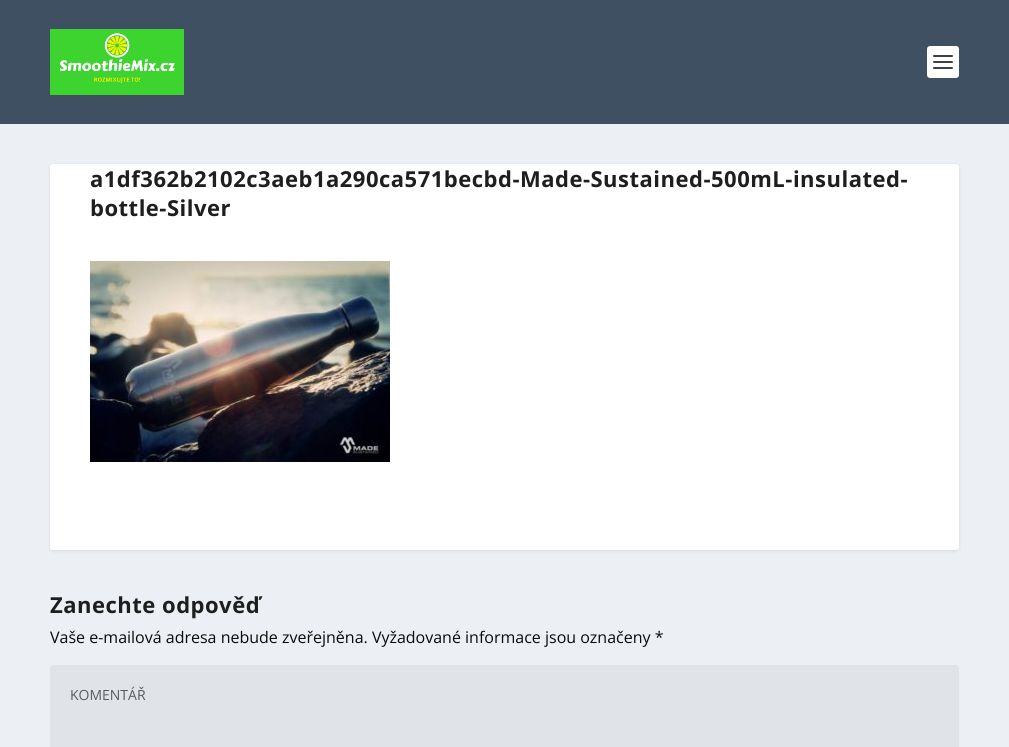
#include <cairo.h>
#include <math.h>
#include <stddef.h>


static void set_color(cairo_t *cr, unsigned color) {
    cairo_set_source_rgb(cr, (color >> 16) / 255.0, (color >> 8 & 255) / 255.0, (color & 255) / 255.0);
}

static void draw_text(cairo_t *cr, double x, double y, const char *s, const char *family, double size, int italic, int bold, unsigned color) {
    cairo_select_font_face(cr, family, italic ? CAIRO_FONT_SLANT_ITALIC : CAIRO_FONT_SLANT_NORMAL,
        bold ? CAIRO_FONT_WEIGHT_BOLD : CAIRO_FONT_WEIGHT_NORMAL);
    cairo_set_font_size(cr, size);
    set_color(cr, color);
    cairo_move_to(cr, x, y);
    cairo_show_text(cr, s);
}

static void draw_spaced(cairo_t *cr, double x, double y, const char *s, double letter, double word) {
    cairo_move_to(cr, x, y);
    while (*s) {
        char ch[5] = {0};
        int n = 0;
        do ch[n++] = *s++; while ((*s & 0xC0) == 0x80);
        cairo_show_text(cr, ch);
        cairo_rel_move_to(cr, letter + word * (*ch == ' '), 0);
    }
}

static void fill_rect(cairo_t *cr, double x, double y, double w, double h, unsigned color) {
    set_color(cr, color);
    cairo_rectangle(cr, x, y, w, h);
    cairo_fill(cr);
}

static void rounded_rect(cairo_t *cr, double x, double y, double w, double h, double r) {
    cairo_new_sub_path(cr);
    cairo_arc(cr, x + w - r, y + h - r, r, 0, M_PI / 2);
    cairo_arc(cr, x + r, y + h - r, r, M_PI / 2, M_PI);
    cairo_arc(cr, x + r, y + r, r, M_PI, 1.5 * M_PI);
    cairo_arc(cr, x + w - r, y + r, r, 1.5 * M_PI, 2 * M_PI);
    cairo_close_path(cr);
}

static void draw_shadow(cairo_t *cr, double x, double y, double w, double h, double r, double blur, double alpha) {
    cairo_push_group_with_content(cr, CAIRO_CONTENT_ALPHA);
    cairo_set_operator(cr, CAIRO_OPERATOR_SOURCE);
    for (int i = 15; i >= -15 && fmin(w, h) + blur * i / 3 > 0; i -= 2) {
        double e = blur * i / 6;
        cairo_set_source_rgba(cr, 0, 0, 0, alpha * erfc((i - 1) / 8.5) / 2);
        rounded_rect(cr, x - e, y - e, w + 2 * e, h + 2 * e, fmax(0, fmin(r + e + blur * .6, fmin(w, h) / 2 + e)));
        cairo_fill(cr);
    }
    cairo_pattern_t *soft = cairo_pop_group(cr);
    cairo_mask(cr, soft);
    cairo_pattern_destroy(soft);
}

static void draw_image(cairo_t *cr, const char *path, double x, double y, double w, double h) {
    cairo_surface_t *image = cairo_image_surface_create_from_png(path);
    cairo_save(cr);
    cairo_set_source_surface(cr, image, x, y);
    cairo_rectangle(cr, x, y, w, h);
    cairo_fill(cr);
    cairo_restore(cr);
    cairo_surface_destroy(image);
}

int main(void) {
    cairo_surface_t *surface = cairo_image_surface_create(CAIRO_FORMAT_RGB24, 1009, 747);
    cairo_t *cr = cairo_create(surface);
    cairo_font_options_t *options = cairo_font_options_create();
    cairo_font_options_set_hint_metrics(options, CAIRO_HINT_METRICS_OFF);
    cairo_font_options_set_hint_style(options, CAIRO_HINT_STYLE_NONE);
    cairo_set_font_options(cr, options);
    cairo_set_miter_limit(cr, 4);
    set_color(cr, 0xECF0F5);
    cairo_paint(cr);
    fill_rect(cr, 0, 0, 1009, 124, 0x3E5062);
    draw_image(cr, "assets/img1.png", 50, 29, 134, 66);
    set_color(cr, 0xFFFFFF);
    rounded_rect(cr, 927, 46, 32, 32, 3);
    cairo_fill(cr);
    set_color(cr, 0x404040);
    rounded_rect(cr, 933, 55, 20, 2, 1);
    cairo_fill(cr);
    rounded_rect(cr, 933, 61, 20, 2, 1);
    cairo_fill(cr);
    rounded_rect(cr, 933, 67, 20, 2, 1);
    cairo_fill(cr);
    set_color(cr, 0x000000);
    draw_shadow(cr, 50, 165, 909, 386, 3, 1.5, 0.1);
    set_color(cr, 0xFFFFFF);
    rounded_rect(cr, 50, 164, 909, 386, 3);
    cairo_fill(cr);
    cairo_select_font_face(cr, "Open Sans", CAIRO_FONT_SLANT_NORMAL, CAIRO_FONT_WEIGHT_BOLD);
    cairo_set_font_size(cr, 22);
    set_color(cr, 0x1E1E1E);
    draw_spaced(cr, 90, 187, "a1df362b2102c3aeb1a290ca571becbd-Made-Sustained-500mL-insulated-", 0.5, 0);
    draw_spaced(cr, 90, 216, "bottle-Silver", 0.5, 0);
    draw_image(cr, "assets/img2.png", 90, 261, 300, 201);
    draw_spaced(cr, 50, 613, "Zanechte odpověď", 0.5, 0);
    draw_text(cr, 50, 643, "Vaše e-mailová adresa nebude zveřejněna. Vyžadované informace jsou označeny *", "Open Sans", 16, 0, 0, 0x0A0A0A);
    set_color(cr, 0xE0E4E9);
    rounded_rect(cr, 50, 665, 909, 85, 3);
    cairo_fill(cr);
    draw_text(cr, 70, 700, "KOMENTÁŘ", "Open Sans", 14, 0, 0, 0x5A5B5D);
    cairo_surface_write_to_png(surface, "output.png");
    cairo_font_options_destroy(options);
    cairo_destroy(cr);
    cairo_surface_destroy(surface);
    return 0;
}
